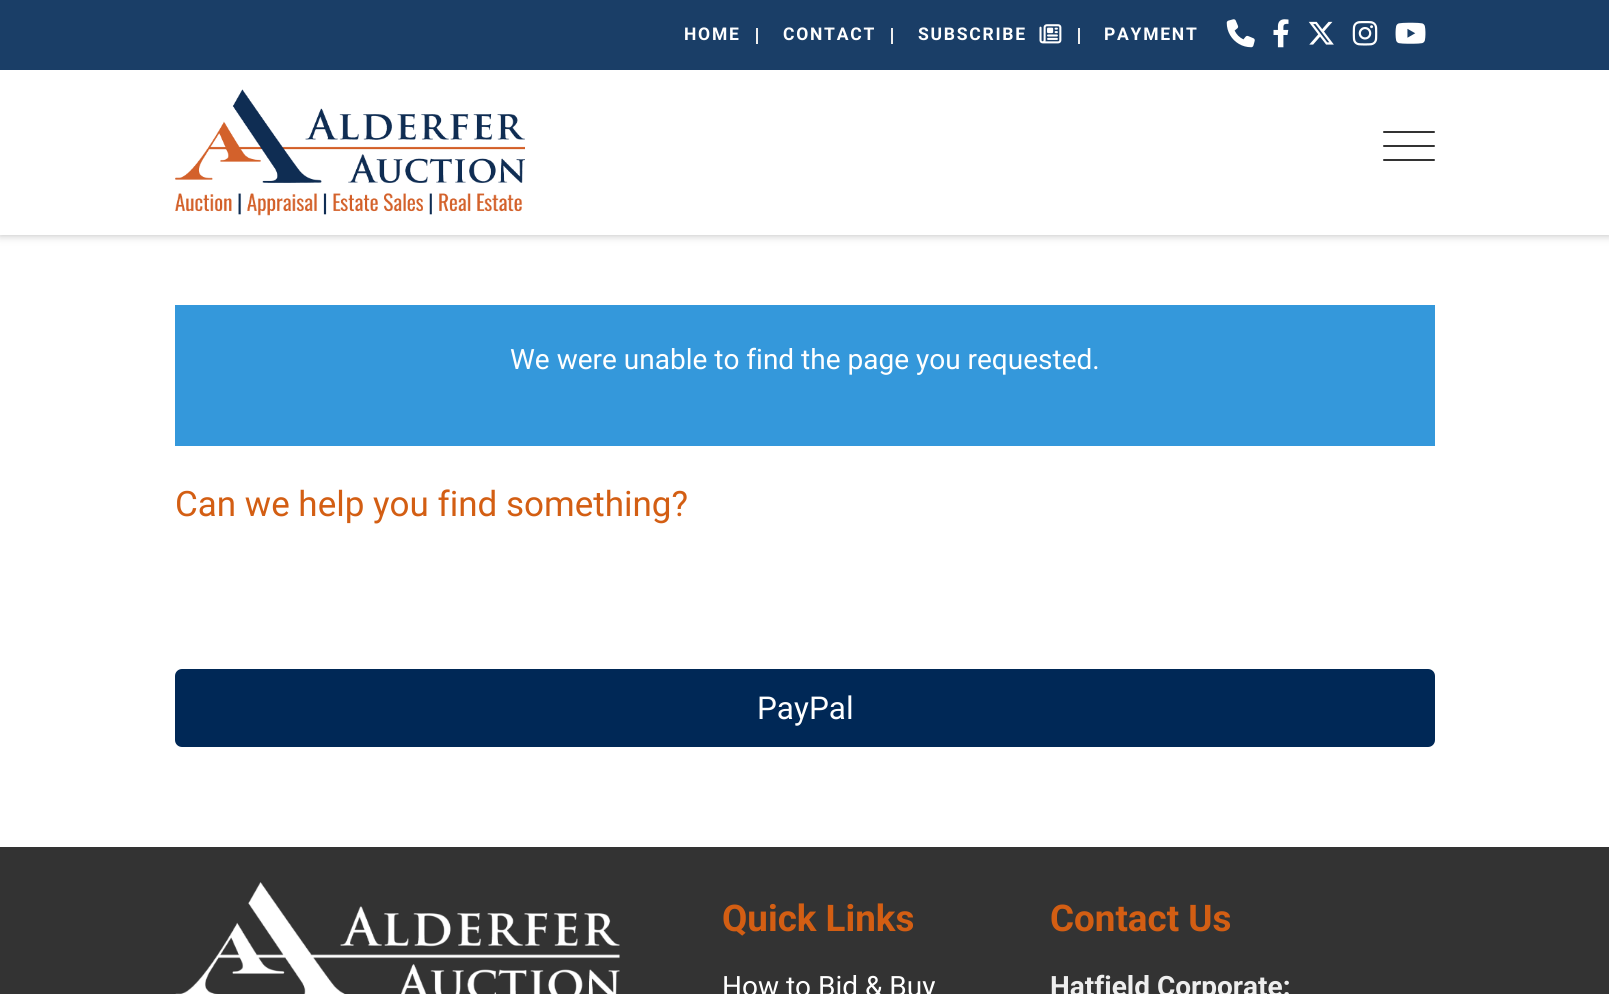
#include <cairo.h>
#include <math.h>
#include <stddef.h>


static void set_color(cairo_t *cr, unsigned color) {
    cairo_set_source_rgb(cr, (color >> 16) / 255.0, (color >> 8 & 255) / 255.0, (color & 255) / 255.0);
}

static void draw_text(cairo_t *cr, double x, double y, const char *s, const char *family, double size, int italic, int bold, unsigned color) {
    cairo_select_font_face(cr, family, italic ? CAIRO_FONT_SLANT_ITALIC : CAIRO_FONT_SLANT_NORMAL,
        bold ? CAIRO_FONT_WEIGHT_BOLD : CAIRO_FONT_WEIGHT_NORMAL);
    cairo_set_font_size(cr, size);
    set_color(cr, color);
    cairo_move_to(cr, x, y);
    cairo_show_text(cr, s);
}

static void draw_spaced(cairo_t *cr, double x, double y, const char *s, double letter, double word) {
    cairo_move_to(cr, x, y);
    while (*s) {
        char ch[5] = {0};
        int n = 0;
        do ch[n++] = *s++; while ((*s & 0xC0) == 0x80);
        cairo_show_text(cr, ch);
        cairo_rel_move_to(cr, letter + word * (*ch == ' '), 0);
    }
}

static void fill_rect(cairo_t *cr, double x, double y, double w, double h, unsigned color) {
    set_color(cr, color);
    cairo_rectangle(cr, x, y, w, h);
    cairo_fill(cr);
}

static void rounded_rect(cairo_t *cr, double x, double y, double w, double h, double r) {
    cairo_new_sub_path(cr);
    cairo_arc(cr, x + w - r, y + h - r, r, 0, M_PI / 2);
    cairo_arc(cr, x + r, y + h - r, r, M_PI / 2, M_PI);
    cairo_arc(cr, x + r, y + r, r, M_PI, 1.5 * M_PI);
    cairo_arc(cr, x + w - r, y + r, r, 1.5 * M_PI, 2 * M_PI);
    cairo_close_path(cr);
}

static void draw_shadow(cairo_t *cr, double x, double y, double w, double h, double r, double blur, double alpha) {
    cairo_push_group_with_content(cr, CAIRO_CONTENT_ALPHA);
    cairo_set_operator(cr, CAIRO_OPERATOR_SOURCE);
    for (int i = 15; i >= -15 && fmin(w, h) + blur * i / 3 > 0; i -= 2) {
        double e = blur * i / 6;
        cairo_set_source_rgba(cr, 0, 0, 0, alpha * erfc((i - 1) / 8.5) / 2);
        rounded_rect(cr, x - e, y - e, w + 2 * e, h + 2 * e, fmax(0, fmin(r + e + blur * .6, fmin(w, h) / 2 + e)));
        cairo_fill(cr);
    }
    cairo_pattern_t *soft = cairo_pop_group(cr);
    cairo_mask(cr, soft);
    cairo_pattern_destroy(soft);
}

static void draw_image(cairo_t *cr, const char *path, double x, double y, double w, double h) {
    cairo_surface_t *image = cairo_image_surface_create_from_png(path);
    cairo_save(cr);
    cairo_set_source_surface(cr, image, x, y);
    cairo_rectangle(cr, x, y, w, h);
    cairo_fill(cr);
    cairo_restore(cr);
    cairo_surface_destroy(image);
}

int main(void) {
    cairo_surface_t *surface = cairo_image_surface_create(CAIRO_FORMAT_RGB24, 1609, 994);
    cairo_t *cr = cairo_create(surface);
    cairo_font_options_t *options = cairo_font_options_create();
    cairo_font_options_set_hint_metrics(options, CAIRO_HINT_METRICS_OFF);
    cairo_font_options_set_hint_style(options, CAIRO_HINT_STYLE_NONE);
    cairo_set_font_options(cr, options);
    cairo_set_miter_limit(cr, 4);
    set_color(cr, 0xFFFFFF);
    cairo_paint(cr);
    cairo_save(cr);
    cairo_set_fill_rule(cr, CAIRO_FILL_RULE_EVEN_ODD);
    cairo_new_path(cr);
    cairo_move_to(cr, 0, 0);
    cairo_line_to(cr, 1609, 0);
    cairo_line_to(cr, 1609, 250);
    cairo_line_to(cr, 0, 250);
    cairo_close_path(cr);
    cairo_move_to(cr, 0, 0);
    cairo_line_to(cr, 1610, 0);
    cairo_line_to(cr, 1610, 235);
    cairo_line_to(cr, 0, 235);
    cairo_close_path(cr);
    cairo_clip(cr);
    set_color(cr, 0xBBBBBB);
    draw_shadow(cr, 0, 0, 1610, 235, 0, 4.5, 1);
    cairo_restore(cr);
    cairo_set_source_rgba(cr, 1, 1, 1, 0.9);
    cairo_rectangle(cr, 0, 234, 1609, 1);
    cairo_fill(cr);
    fill_rect(cr, 0, 0, 1609, 70, 0x1A3E67);
    cairo_select_font_face(cr, "Roboto", CAIRO_FONT_SLANT_NORMAL, CAIRO_FONT_WEIGHT_BOLD);
    cairo_set_font_size(cr, 17.5);
    set_color(cr, 0xFFFFFF);
    draw_spaced(cr, 684, 40, "HOME", 1.75, 0);
    fill_rect(cr, 756, 28, 2, 16, 0xEEEEEE);
    set_color(cr, 0xFFFFFF);
    draw_spaced(cr, 783, 40, "CONTACT", 1.75, 0);
    fill_rect(cr, 891, 28, 2, 16, 0xEEEEEE);
    set_color(cr, 0xFFFFFF);
    draw_spaced(cr, 918, 40, "SUBSCRIBE", 1.75, 0);
    draw_image(cr, "assets/img1.png", 1039, 24, 23, 20);
    fill_rect(cr, 1078, 28, 2, 16, 0xEEEEEE);
    set_color(cr, 0xFFFFFF);
    draw_spaced(cr, 1104, 40, "PAYMENT", 1.75, 0);
    draw_image(cr, "assets/img2.png", 1226, 19, 29, 29);
    draw_image(cr, "assets/img3.png", 1273, 19, 16, 29);
    draw_image(cr, "assets/img4.png", 1308, 21, 26, 24);
    draw_image(cr, "assets/img5.png", 1352, 21, 26, 25);
    draw_image(cr, "assets/img6.png", 1395, 22, 31, 22);
    draw_image(cr, "assets/img7.png", 175, 89, 350, 127);
    set_color(cr, 0x333333);
    rounded_rect(cr, 1383, 131, 52, 2, 1);
    cairo_fill(cr);
    rounded_rect(cr, 1383, 145, 52, 2, 1);
    cairo_fill(cr);
    rounded_rect(cr, 1383, 159, 52, 2, 1);
    cairo_fill(cr);
    fill_rect(cr, 175, 305, 1260, 141, 0x3498DB);
    draw_text(cr, 510, 369, "We were unable to find the page you requested.", "Roboto", 28, 0, 0, 0xFFFFFF);
    draw_text(cr, 175, 516, "Can we help you find something?", "Roboto", 35, 0, 0, 0xD35E13);
    set_color(cr, 0x002856);
    rounded_rect(cr, 175, 669, 1260, 78, 7);
    cairo_fill(cr);
    draw_text(cr, 757, 719, "PayPal", "Roboto", 31.5, 0, 0, 0xFFFFFF);
    fill_rect(cr, 0, 847, 1609, 147, 0x333333);
    draw_image(cr, "assets/img8.png", 175, 882, 445, 112);
    draw_text(cr, 722, 931, "Quick Links", "Roboto", 36.75, 0, 1, 0xD35E13);
    draw_text(cr, 722, 996, "How to Bid & Buy", "Roboto", 28, 0, 0, 0xFFFFFF);
    draw_text(cr, 1050, 931, "Contact Us", "Roboto", 36.75, 0, 1, 0xD35E13);
    draw_text(cr, 1050, 996, "Hatfield Corporate:", "Roboto", 28, 0, 1, 0xEEEEEE);
    cairo_surface_write_to_png(surface, "output.png");
    cairo_font_options_destroy(options);
    cairo_destroy(cr);
    cairo_surface_destroy(surface);
    return 0;
}
